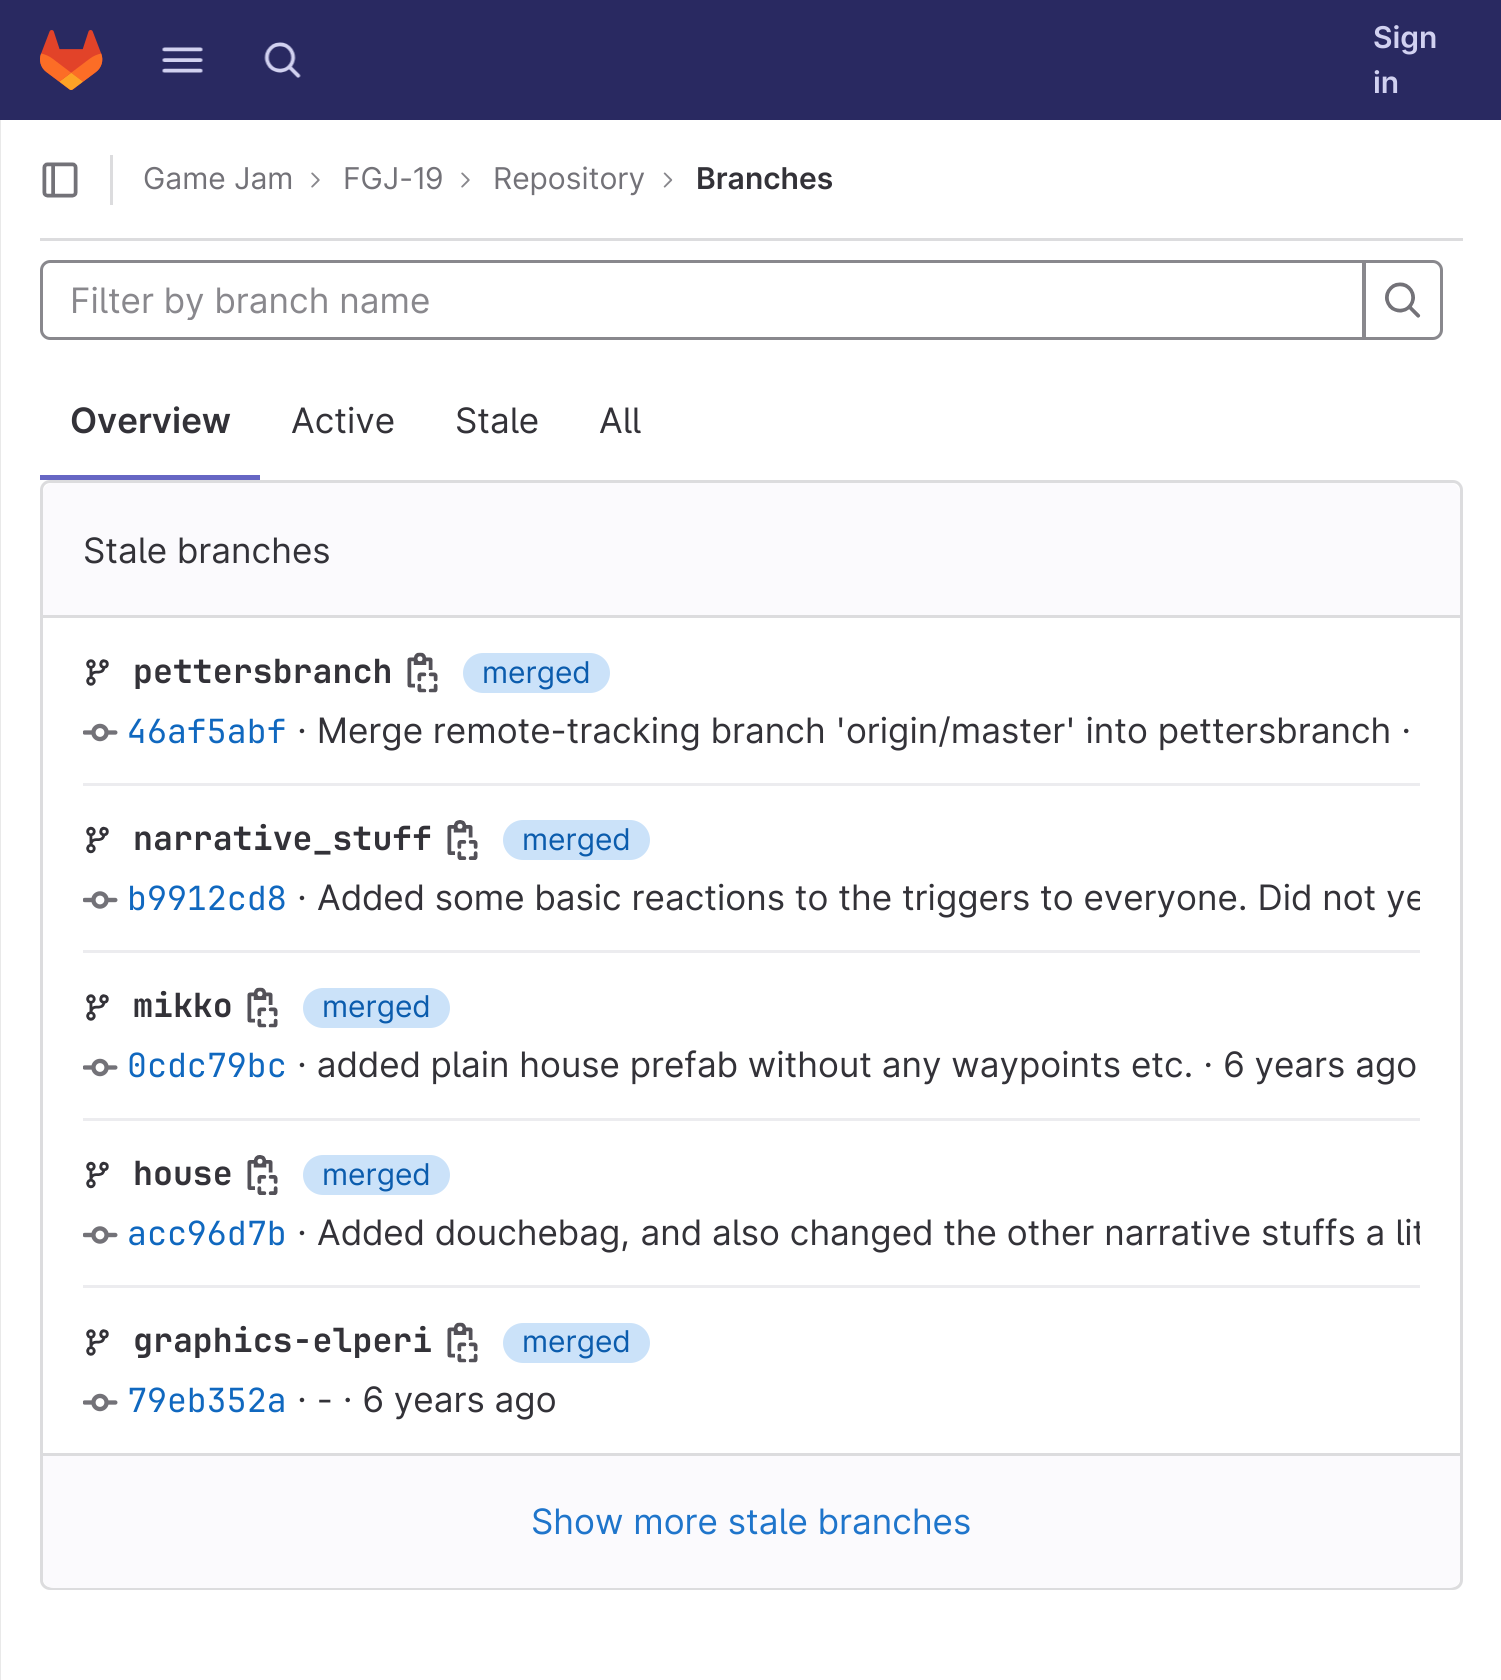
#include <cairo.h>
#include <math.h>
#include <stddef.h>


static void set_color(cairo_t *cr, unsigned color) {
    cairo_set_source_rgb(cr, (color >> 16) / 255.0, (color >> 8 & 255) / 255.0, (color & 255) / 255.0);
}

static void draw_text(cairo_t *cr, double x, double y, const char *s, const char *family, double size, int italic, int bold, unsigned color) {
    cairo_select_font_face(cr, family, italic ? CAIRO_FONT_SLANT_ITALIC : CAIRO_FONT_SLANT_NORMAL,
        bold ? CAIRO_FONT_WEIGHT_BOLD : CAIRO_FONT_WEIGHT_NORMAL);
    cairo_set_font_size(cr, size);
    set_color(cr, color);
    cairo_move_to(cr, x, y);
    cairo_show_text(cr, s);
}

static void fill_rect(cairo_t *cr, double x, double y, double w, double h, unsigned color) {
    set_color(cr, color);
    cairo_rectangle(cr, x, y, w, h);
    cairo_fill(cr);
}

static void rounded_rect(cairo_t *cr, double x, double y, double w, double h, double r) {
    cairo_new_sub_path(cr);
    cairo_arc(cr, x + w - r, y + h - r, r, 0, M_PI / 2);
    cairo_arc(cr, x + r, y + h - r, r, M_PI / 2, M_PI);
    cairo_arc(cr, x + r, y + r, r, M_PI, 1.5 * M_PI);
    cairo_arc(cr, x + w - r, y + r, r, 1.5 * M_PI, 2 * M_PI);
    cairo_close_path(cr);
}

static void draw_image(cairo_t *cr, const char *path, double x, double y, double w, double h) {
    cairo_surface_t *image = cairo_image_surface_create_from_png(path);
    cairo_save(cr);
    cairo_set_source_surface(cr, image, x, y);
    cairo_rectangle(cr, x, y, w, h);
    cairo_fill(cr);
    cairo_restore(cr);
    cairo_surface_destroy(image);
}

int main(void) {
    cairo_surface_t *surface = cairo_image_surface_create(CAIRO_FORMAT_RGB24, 1501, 1680);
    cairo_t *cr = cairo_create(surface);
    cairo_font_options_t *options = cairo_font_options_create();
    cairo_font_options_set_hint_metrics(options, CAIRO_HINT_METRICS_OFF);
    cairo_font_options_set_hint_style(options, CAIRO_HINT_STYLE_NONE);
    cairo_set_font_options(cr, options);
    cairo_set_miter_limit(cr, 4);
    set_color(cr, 0xFFFFFF);
    cairo_paint(cr);
    fill_rect(cr, 0, 0, 1501, 120, 0x292961);
    draw_image(cr, "assets/img1.png", 40, 30, 63, 60);
    draw_image(cr, "assets/img2.png", 162, 47, 41, 26);
    draw_image(cr, "assets/img3.png", 264, 42, 37, 36);
    draw_text(cr, 1373, 48, "Sign", "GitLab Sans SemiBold", 30, 0, 0, 0xD1D1F0);
    draw_text(cr, 1373, 93, "in", "GitLab Sans SemiBold", 30, 0, 0, 0xD1D1F0);
    fill_rect(cr, 0, 120, 1, 1560, 0xE9E9E9);
    fill_rect(cr, 40, 238, 1423, 3, 0xDCDCDE);
    draw_image(cr, "assets/img4.png", 42, 162, 36, 36);
    fill_rect(cr, 110, 155, 3, 50, 0xDCDCDE);
    draw_text(cr, 143, 189, "Game Jam", "GitLab Sans", 30, 0, 0, 0x737278);
    draw_image(cr, "assets/img5.png", 311, 172, 9, 16);
    draw_text(cr, 343, 189, "FGJ-19", "GitLab Sans", 30, 0, 0, 0x737278);
    draw_image(cr, "assets/img5.png", 461, 172, 9, 16);
    draw_text(cr, 493, 189, "Repository", "GitLab Sans", 30, 0, 0, 0x737278);
    draw_image(cr, "assets/img6.png", 663, 172, 10, 16);
    draw_text(cr, 696, 189, "Branches", "GitLab Sans SemiBold", 30, 0, 0, 0x333238);
    cairo_new_path(cr);
    cairo_move_to(cr, 50, 261.5);
    cairo_line_to(cr, 1363.5, 261.5);
    cairo_line_to(cr, 1363.5, 338.5);
    cairo_line_to(cr, 50, 338.5);
    cairo_curve_to(cr, 45.5, 338.5, 41.5, 334.5, 41.5, 330);
    cairo_line_to(cr, 41.5, 270);
    cairo_curve_to(cr, 41.5, 265.5, 45.5, 261.5, 50, 261.5);
    cairo_close_path(cr);
    set_color(cr, 0x89888D);
    cairo_set_line_width(cr, 3);
    cairo_stroke(cr);
    cairo_save(cr);
    cairo_rectangle(cr, 70, 278, 1215, 42);
    cairo_clip(cr);
    draw_text(cr, 70, 313, "Filter by branch name", "GitLab Sans", 35, 0, 0, 0x89888D);
    cairo_restore(cr);
    set_color(cr, 0xFFFFFF);
    cairo_new_path(cr);
    cairo_move_to(cr, 1364.5, 261.5);
    cairo_line_to(cr, 1433, 261.5);
    cairo_curve_to(cr, 1437.5, 261.5, 1441.5, 265.5, 1441.5, 270);
    cairo_line_to(cr, 1441.5, 330);
    cairo_curve_to(cr, 1441.5, 334.5, 1437.5, 338.5, 1433, 338.5);
    cairo_line_to(cr, 1364.5, 338.5);
    cairo_close_path(cr);
    cairo_fill_preserve(cr);
    set_color(cr, 0x89888D);
    cairo_stroke(cr);
    draw_image(cr, "assets/img7.png", 1385, 282, 36, 36);
    fill_rect(cr, 40, 475, 220, 5, 0x6666C4);
    draw_text(cr, 70, 433, "Overview", "GitLab Sans SemiBold", 35, 0, 0, 0x333238);
    draw_text(cr, 291, 433, "Active", "GitLab Sans", 35, 0, 0, 0x333238);
    draw_text(cr, 455, 433, "Stale", "GitLab Sans", 35, 0, 0, 0x333238);
    draw_text(cr, 599, 433, "All", "GitLab Sans", 35, 0, 0, 0x333238);
    rounded_rect(cr, 41.5, 481.5, 1420, 1107, 8.5);
    set_color(cr, 0xDCDCDE);
    cairo_stroke(cr);
    set_color(cr, 0xFBFAFD);
    cairo_new_path(cr);
    cairo_move_to(cr, 53, 483);
    cairo_line_to(cr, 1450, 483);
    cairo_curve_to(cr, 1455.5, 483, 1460, 487.5, 1460, 493);
    cairo_line_to(cr, 1460, 618);
    cairo_line_to(cr, 43, 618);
    cairo_line_to(cr, 43, 493);
    cairo_curve_to(cr, 43, 487.5, 47.5, 483, 53, 483);
    cairo_close_path(cr);
    cairo_fill(cr);
    fill_rect(cr, 43, 615, 1417, 3, 0xDCDCDE);
    draw_text(cr, 83, 563, "Stale branches", "GitLab Sans", 35, 0, 0, 0x333238);
    fill_rect(cr, 83, 783, 1337, 3, 0xECECEF);
    draw_image(cr, "assets/img8.png", 86, 659, 23, 27);
    draw_text(cr, 133, 683, "pettersbranch", "JetBrains Mono", 33.25, 0, 1, 0x333238);
    draw_image(cr, "assets/img9.png", 407, 652, 31, 41);
    set_color(cr, 0xCBE2F9);
    rounded_rect(cr, 463, 653, 147, 40, 20);
    cairo_fill(cr);
    draw_text(cr, 482, 683, "merged", "GitLab Sans", 30, 0, 0, 0x0B5CAD);
    draw_image(cr, "assets/img10.png", 83, 723, 35, 19);
    draw_text(cr, 127, 743, "46af5abf", "JetBrains Mono", 33.25, 0, 0, 0x1068BF);
    draw_text(cr, 297, 743, "· Merge remote-tracking branch 'origin/master' into pettersbranch ·", "GitLab Sans", 35, 0, 0, 0x333238);
    fill_rect(cr, 83, 950, 1337, 3, 0xECECEF);
    draw_image(cr, "assets/img11.png", 86, 826, 23, 28);
    draw_text(cr, 133, 850, "narrative_stuff", "JetBrains Mono", 33.25, 0, 1, 0x333238);
    draw_image(cr, "assets/img12.png", 447, 820, 31, 40);
    set_color(cr, 0xCBE2F9);
    rounded_rect(cr, 503, 820, 147, 40, 20);
    cairo_fill(cr);
    draw_text(cr, 522, 850, "merged", "GitLab Sans", 30, 0, 0, 0x0B5CAD);
    draw_image(cr, "assets/img13.png", 83, 891, 35, 18);
    draw_text(cr, 127, 910, "b9912cd8", "JetBrains Mono", 33.25, 0, 0, 0x1068BF);
    draw_text(cr, 297, 910, "·", "GitLab Sans", 35, 0, 0, 0x333238);
    cairo_save(cr);
    cairo_rectangle(cr, 83, 870, 1337, 55);
    cairo_clip(cr);
    draw_text(cr, 317, 910, "Added some basic reactions to the triggers to everyone. Did not ye", "GitLab Sans", 35, 0, 0, 0x333238);
    cairo_restore(cr);
    fill_rect(cr, 83, 1118, 1337, 3, 0xECECEF);
    draw_image(cr, "assets/img14.png", 86, 994, 23, 27);
    draw_text(cr, 133, 1017, "mikko", "JetBrains Mono", 33.25, 0, 1, 0x333238);
    draw_image(cr, "assets/img15.png", 247, 987, 31, 41);
    set_color(cr, 0xCBE2F9);
    rounded_rect(cr, 303, 988, 147, 40, 20);
    cairo_fill(cr);
    draw_text(cr, 322, 1017, "merged", "GitLab Sans", 30, 0, 0, 0x0B5CAD);
    draw_image(cr, "assets/img10.png", 83, 1058, 35, 19);
    draw_text(cr, 127, 1077, "0cdc79bc", "JetBrains Mono", 33.25, 0, 0, 0x1068BF);
    draw_text(cr, 297, 1077, "· added plain house prefab without any waypoints etc. · 6 years ago", "GitLab Sans", 35, 0, 0, 0x333238);
    fill_rect(cr, 83, 1285, 1337, 3, 0xECECEF);
    draw_image(cr, "assets/img11.png", 86, 1161, 23, 28);
    draw_text(cr, 133, 1185, "house", "JetBrains Mono", 33.25, 0, 1, 0x333238);
    draw_image(cr, "assets/img16.png", 247, 1155, 31, 40);
    set_color(cr, 0xCBE2F9);
    rounded_rect(cr, 303, 1155, 147, 40, 20);
    cairo_fill(cr);
    draw_text(cr, 322, 1185, "merged", "GitLab Sans", 30, 0, 0, 0x0B5CAD);
    draw_image(cr, "assets/img13.png", 83, 1226, 35, 18);
    draw_text(cr, 127, 1245, "acc96d7b", "JetBrains Mono", 33.25, 0, 0, 0x1068BF);
    draw_text(cr, 297, 1245, "·", "GitLab Sans", 35, 0, 0, 0x333238);
    cairo_save(cr);
    cairo_rectangle(cr, 83, 1205, 1337, 55);
    cairo_clip(cr);
    draw_text(cr, 317, 1245, "Added douchebag, and also changed the other narrative stuffs a lit", "GitLab Sans", 35, 0, 0, 0x333238);
    cairo_restore(cr);
    draw_image(cr, "assets/img8.png", 86, 1329, 23, 27);
    draw_text(cr, 133, 1352, "graphics-elperi", "JetBrains Mono", 33.25, 0, 1, 0x333238);
    draw_image(cr, "assets/img9.png", 447, 1322, 31, 41);
    set_color(cr, 0xCBE2F9);
    rounded_rect(cr, 503, 1323, 147, 40, 20);
    cairo_fill(cr);
    draw_text(cr, 522, 1352, "merged", "GitLab Sans", 30, 0, 0, 0x0B5CAD);
    draw_image(cr, "assets/img10.png", 83, 1393, 35, 19);
    draw_text(cr, 127, 1412, "79eb352a", "JetBrains Mono", 33.25, 0, 0, 0x1068BF);
    draw_text(cr, 297, 1412, "· - · 6 years ago", "GitLab Sans", 35, 0, 0, 0x333238);
    set_color(cr, 0xFBFAFD);
    cairo_new_path(cr);
    cairo_move_to(cr, 43, 1453);
    cairo_line_to(cr, 1460, 1453);
    cairo_line_to(cr, 1460, 1578);
    cairo_curve_to(cr, 1460, 1583.5, 1455.5, 1588, 1450, 1588);
    cairo_line_to(cr, 53, 1588);
    cairo_curve_to(cr, 47.5, 1588, 43, 1583.5, 43, 1578);
    cairo_close_path(cr);
    cairo_fill(cr);
    fill_rect(cr, 43, 1453, 1417, 3, 0xDCDCDE);
    draw_text(cr, 531, 1534, "Show more stale branches", "GitLab Sans", 35, 0, 0, 0x1F75CB);
    cairo_surface_write_to_png(surface, "output.png");
    cairo_font_options_destroy(options);
    cairo_destroy(cr);
    cairo_surface_destroy(surface);
    return 0;
}
